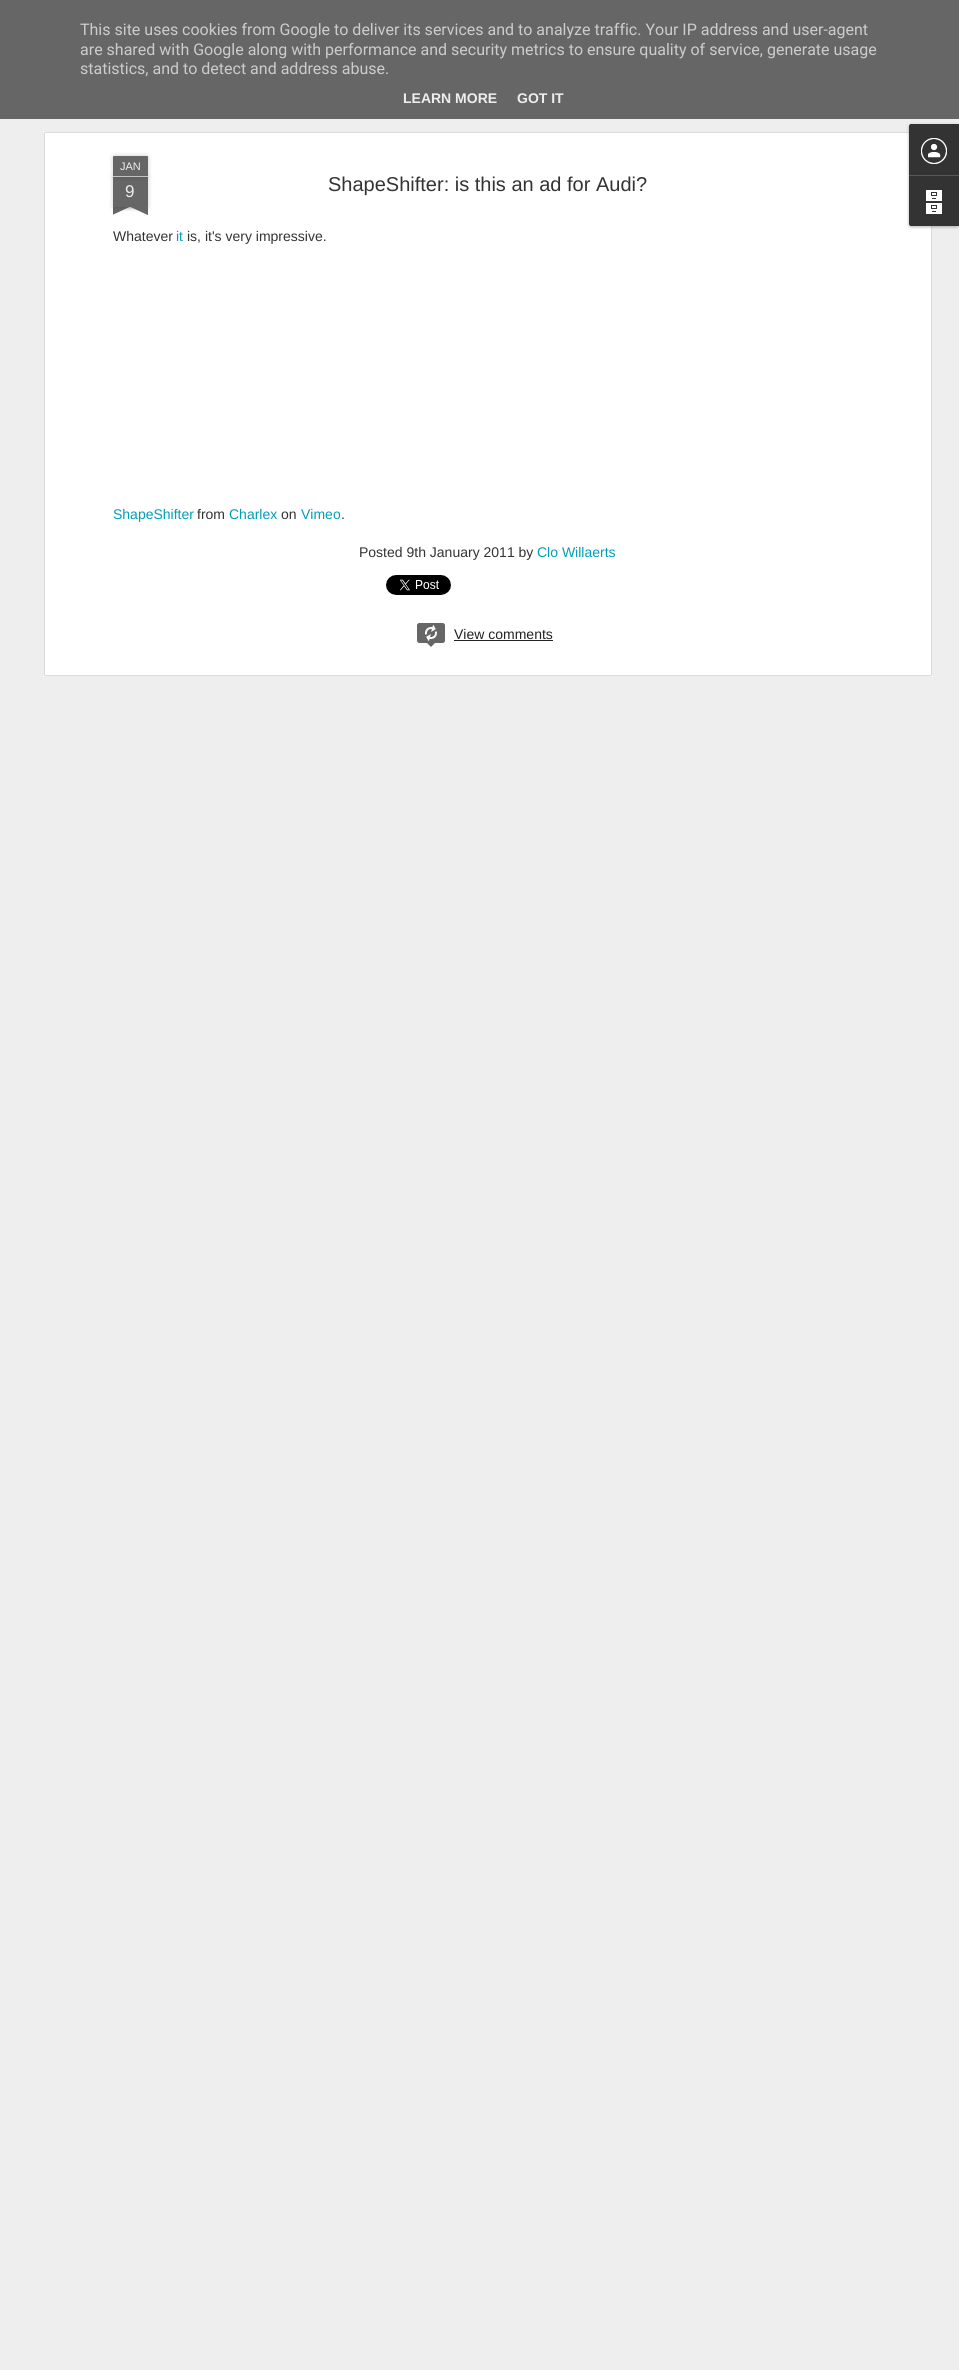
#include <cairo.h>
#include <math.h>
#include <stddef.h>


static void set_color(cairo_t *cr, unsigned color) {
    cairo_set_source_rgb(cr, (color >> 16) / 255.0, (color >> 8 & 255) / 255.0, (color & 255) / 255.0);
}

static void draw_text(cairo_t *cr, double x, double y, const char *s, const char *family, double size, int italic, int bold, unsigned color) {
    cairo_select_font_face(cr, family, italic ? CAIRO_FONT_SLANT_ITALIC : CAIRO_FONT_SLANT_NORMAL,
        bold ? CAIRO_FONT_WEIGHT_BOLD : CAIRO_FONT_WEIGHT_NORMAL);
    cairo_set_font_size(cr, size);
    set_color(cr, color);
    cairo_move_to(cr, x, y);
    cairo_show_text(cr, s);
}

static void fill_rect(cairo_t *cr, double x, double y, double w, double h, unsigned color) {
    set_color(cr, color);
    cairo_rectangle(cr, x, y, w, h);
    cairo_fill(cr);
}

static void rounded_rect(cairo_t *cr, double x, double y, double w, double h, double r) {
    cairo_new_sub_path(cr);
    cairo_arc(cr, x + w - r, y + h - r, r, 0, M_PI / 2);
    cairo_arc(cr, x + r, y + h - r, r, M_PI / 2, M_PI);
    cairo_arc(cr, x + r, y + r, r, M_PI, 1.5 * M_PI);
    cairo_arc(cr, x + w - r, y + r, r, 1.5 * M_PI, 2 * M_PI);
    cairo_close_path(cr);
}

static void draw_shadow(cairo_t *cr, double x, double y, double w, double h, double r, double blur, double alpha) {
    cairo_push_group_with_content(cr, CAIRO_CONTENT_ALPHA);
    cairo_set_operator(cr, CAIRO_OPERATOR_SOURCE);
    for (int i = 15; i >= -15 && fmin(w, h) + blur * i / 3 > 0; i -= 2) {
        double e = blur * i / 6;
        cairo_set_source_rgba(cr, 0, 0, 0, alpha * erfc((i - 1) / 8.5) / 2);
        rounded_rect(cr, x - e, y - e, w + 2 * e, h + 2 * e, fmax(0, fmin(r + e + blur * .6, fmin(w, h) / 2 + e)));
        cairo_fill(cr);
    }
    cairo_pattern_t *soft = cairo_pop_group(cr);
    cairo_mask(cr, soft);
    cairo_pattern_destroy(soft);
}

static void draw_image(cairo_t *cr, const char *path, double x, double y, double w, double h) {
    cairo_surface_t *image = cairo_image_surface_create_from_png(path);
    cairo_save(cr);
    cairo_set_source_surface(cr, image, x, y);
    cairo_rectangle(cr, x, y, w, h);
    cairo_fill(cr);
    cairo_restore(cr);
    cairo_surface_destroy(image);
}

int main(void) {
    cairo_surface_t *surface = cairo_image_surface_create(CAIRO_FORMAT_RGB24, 959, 2370);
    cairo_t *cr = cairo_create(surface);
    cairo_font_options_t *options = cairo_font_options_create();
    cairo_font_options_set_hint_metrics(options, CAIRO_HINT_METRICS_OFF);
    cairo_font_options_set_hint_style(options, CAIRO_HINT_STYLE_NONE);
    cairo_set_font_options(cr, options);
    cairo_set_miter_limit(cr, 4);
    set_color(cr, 0xEEEEEE);
    cairo_paint(cr);
    fill_rect(cr, 0, 0, 959, 119, 0x666666);
    draw_text(cr, 80, 35, "This site uses cookies from Google to deliver its services and to analyze traffic. Your IP address and user-agent", "Roboto", 16, 0, 0, 0xCCCCCC);
    draw_text(cr, 80, 55, "are shared with Google along with performance and security metrics to ensure quality of service, generate usage", "Roboto", 16, 0, 0, 0xCCCCCC);
    draw_text(cr, 80, 74, "statistics, and to detect and address abuse.", "Roboto", 16, 0, 0, 0xCCCCCC);
    draw_text(cr, 403, 103, "LEARN MORE", "Liberation Sans", 14, 0, 1, 0xEEEEEE);
    draw_text(cr, 517, 103, "GOT IT", "Liberation Sans", 14, 0, 1, 0xEEEEEE);
    fill_rect(cr, 43, 131, 890, 546, 0xFFFFFF);
    draw_image(cr, "assets/img1.png", 43, 131, 890, 546);
    set_color(cr, 0x000000);
    draw_shadow(cr, 113, 177, 35, 30, 0, 2.5, 0.2);
    fill_rect(cr, 113, 177, 35, 30, 0x666666);
    set_color(cr, 0x000000);
    draw_shadow(cr, 113, 156, 35, 21, 1, 2.5, 0.2);
    set_color(cr, 0x666666);
    cairo_new_path(cr);
    cairo_move_to(cr, 114, 156);
    cairo_line_to(cr, 147, 156);
    cairo_curve_to(cr, 147.5, 156, 148, 156.5, 148, 157);
    cairo_line_to(cr, 148, 177);
    cairo_line_to(cr, 113, 177);
    cairo_line_to(cr, 113, 157);
    cairo_curve_to(cr, 113, 156.5, 113.5, 156, 114, 156);
    cairo_close_path(cr);
    cairo_fill(cr);
    fill_rect(cr, 113, 176, 35, 1, 0xC2C2C2);
    draw_text(cr, 120, 170, "JAN", "Liberation Sans", 11, 0, 0, 0xEEEEEE);
    draw_text(cr, 125, 197, "9", "Liberation Sans", 17, 0, 0, 0xEEEEEE);
    cairo_save(cr);
    cairo_rectangle(cr, 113, 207, 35, 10);
    cairo_clip(cr);
    set_color(cr, 0x000000);
    draw_shadow(cr, 104, 197, 50, 10, 0, 2.5, 0.2);
    cairo_restore(cr);
    cairo_save(cr);
    cairo_rectangle(cr, 113, 207, 35, 10);
    cairo_clip(cr);
    set_color(cr, 0x666666);
    cairo_new_path(cr);
    cairo_move_to(cr, 104, 208);
    cairo_line_to(cr, 149, 187);
    cairo_line_to(cr, 153, 196);
    cairo_line_to(cr, 108, 217);
    cairo_close_path(cr);
    cairo_fill(cr);
    cairo_restore(cr);
    cairo_save(cr);
    cairo_rectangle(cr, 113, 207, 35, 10);
    cairo_clip(cr);
    set_color(cr, 0x000000);
    draw_shadow(cr, 107, 197, 50, 10, 0, 2.5, 0.2);
    cairo_restore(cr);
    cairo_save(cr);
    cairo_rectangle(cr, 113, 207, 35, 10);
    cairo_clip(cr);
    set_color(cr, 0x666666);
    cairo_new_path(cr);
    cairo_move_to(cr, 111, 187);
    cairo_line_to(cr, 156, 208);
    cairo_line_to(cr, 152, 217);
    cairo_line_to(cr, 107, 196);
    cairo_close_path(cr);
    cairo_fill(cr);
    cairo_restore(cr);
    draw_text(cr, 328, 191, "ShapeShifter: is this an ad for Audi?", "Liberation Sans", 20, 0, 0, 0x333333);
    draw_text(cr, 113, 241, "Whatever", "Liberation Sans", 14, 0, 0, 0x333333);
    draw_text(cr, 176, 241, "it", "Liberation Sans", 14, 0, 0, 0x009EB8);
    draw_text(cr, 187, 241, "is, it's very impressive.", "Liberation Sans", 14, 0, 0, 0x333333);
    draw_text(cr, 113, 519, "ShapeShifter", "Liberation Sans", 14, 0, 0, 0x009EB8);
    draw_text(cr, 197, 519, "from", "Liberation Sans", 14, 0, 0, 0x333333);
    draw_text(cr, 229, 519, "Charlex", "Liberation Sans", 14, 0, 0, 0x009EB8);
    draw_text(cr, 281, 519, "on", "Liberation Sans", 14, 0, 0, 0x333333);
    draw_text(cr, 301, 519, "Vimeo", "Liberation Sans", 14, 0, 0, 0x009EB8);
    draw_text(cr, 341, 519, ".", "Liberation Sans", 14, 0, 0, 0x333333);
    draw_text(cr, 359, 557, "Posted 9th January 2011 by", "Liberation Sans", 14, 0, 0, 0x333333);
    draw_text(cr, 537, 557, "Clo Willaerts", "Liberation Sans", 14, 0, 0, 0x009EB8);
    draw_image(cr, "assets/img2.png", 386, 575, 65, 20);
    set_color(cr, 0x666666);
    rounded_rect(cr, 417, 623, 28, 20, 3);
    cairo_fill(cr);
    draw_image(cr, "assets/img3.png", 425, 625, 12, 16);
    rounded_rect(cr, 417.5, 623.5, 27, 19, 2.5);
    cairo_set_line_width(cr, 1);
    cairo_stroke(cr);
    cairo_new_path(cr);
    cairo_move_to(cr, 426, 642);
    cairo_line_to(cr, 436, 642);
    cairo_line_to(cr, 431, 647);
    cairo_close_path(cr);
    cairo_fill(cr);
    draw_text(cr, 454, 639, "View comments", "Liberation Sans", 14, 0, 0, 0x222222);
    fill_rect(cr, 454, 640, 99, 1, 0x222222);
    set_color(cr, 0x000000);
    draw_shadow(cr, 909, 125, 50, 102, 2, 1.5, 0.3);
    set_color(cr, 0x333333);
    cairo_new_path(cr);
    cairo_move_to(cr, 911, 124);
    cairo_line_to(cr, 959, 124);
    cairo_line_to(cr, 959, 175);
    cairo_line_to(cr, 909, 175);
    cairo_line_to(cr, 909, 126);
    cairo_curve_to(cr, 909, 125, 910, 124, 911, 124);
    cairo_close_path(cr);
    cairo_fill(cr);
    draw_image(cr, "assets/img4.png", 921, 138, 26, 26);
    cairo_new_path(cr);
    cairo_move_to(cr, 909, 175);
    cairo_line_to(cr, 959, 175);
    cairo_line_to(cr, 959, 226);
    cairo_line_to(cr, 911, 226);
    cairo_curve_to(cr, 910, 226, 909, 225, 909, 224);
    cairo_close_path(cr);
    cairo_fill(cr);
    fill_rect(cr, 909, 175, 50, 1, 0x585858);
    draw_image(cr, "assets/img5.png", 926, 190, 16, 24);
    cairo_surface_write_to_png(surface, "output.png");
    cairo_font_options_destroy(options);
    cairo_destroy(cr);
    cairo_surface_destroy(surface);
    return 0;
}
